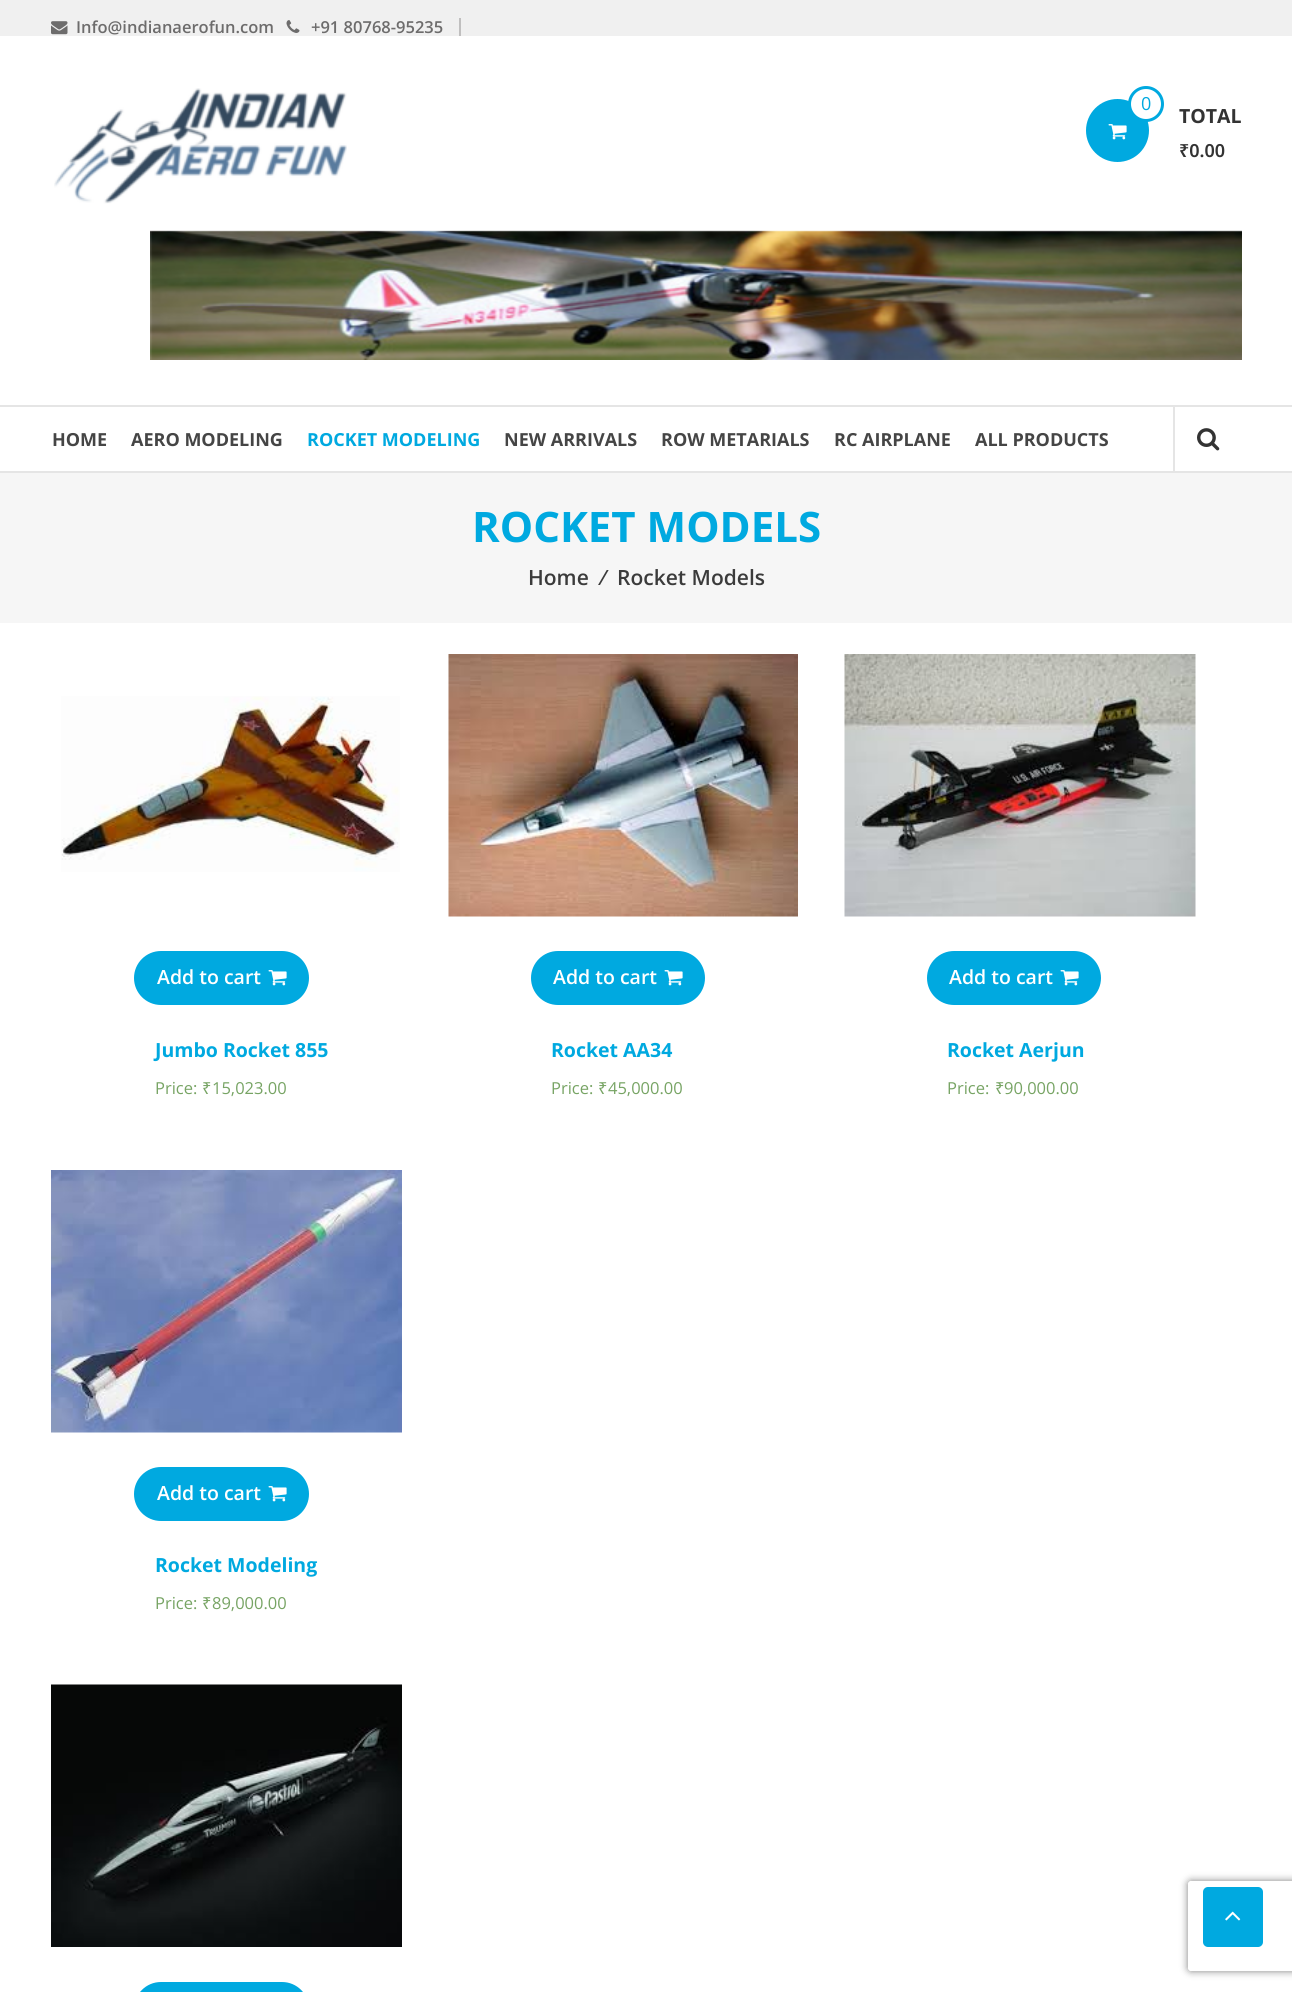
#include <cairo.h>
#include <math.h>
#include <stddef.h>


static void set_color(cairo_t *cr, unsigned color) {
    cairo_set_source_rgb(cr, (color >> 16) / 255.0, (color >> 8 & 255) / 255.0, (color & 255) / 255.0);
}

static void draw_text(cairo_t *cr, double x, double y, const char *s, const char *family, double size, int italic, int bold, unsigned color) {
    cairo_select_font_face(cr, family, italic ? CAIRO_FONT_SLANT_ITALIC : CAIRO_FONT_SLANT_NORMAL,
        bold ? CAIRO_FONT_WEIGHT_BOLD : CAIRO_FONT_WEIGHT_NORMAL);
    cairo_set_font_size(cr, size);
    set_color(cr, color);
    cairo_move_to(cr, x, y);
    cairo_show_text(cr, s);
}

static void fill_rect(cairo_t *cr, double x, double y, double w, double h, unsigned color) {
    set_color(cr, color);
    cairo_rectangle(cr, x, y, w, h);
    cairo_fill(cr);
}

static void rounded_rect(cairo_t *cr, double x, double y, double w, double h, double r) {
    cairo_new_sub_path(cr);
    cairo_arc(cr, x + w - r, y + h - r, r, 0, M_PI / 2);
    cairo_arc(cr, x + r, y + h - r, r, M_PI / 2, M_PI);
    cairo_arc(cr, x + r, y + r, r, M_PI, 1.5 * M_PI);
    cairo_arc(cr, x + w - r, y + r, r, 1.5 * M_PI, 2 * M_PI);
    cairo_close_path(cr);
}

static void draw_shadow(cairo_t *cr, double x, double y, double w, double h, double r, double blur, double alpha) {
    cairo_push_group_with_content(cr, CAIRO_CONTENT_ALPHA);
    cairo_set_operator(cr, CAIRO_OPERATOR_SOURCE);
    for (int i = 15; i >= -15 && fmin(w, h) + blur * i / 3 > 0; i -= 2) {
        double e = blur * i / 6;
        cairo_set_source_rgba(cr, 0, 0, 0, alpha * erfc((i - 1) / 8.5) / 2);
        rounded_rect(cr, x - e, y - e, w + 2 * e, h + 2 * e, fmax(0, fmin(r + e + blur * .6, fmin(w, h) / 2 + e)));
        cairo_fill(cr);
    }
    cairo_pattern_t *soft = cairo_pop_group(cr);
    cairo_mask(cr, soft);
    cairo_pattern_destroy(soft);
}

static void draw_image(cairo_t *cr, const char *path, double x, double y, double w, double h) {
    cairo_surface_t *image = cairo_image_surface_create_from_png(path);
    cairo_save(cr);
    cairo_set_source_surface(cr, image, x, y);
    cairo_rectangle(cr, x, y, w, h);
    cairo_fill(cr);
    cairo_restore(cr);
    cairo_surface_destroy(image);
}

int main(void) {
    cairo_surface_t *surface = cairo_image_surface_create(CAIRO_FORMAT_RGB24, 1292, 1992);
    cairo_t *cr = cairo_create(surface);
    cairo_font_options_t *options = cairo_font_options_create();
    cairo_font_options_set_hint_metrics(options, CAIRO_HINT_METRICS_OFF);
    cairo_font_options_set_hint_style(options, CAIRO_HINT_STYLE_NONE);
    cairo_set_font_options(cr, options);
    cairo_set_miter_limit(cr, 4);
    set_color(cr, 0xFFFFFF);
    cairo_paint(cr);
    fill_rect(cr, 0, 0, 1292, 36, 0xF0F0F0);
    fill_rect(cr, 459, 18, 2, 18, 0xC0BFBF);
    draw_image(cr, "assets/img1.png", 51, 21, 17, 14);
    draw_text(cr, 76, 33, "Info@indianaerofun.com", "Open Sans SemiBold", 16.5, 0, 0, 0x6D6C6C);
    draw_image(cr, "assets/img2.png", 286, 20, 14, 13);
    draw_text(cr, 311, 33, "+91 80768-95235", "Open Sans SemiBold", 16.5, 0, 0, 0x6D6C6C);
    draw_image(cr, "assets/img3.png", 54, 88, 293, 116);
    set_color(cr, 0x00A9E0);
    cairo_arc(cr, 1117.5, 130.5, 31.5, 0, 2 * M_PI);
    cairo_fill(cr);
    set_color(cr, 0xFFFFFF);
    cairo_arc(cr, 1146, 104, 16.5, 0, 2 * M_PI);
    cairo_fill_preserve(cr);
    set_color(cr, 0x00A9E0);
    cairo_set_line_width(cr, 3);
    cairo_stroke(cr);
    draw_text(cr, 1141, 110, "0", "Open Sans", 18, 0, 0, 0x00A9E0);
    draw_image(cr, "assets/img4.png", 1108, 124, 19, 16);
    draw_text(cr, 1179, 123, "TOTAL", "Open Sans", 19.5, 0, 1, 0x333333);
    draw_text(cr, 1179, 157, "₹0.00", "Noto Sans SemiBold", 18, 0, 0, 0x333333);
    draw_image(cr, "assets/img5.png", 150, 230, 1092, 130);
    fill_rect(cr, 0, 405, 1292, 2, 0xE5E5E5);
    fill_rect(cr, 0, 471, 1292, 2, 0xE5E5E5);
    draw_text(cr, 52, 446, "HOME", "Open Sans", 18, 0, 1, 0x454545);
    draw_text(cr, 131, 446, "AERO MODELING", "Open Sans", 18, 0, 1, 0x454545);
    draw_text(cr, 307, 446, "ROCKET MODELING", "Open Sans", 18, 0, 1, 0x00A9E0);
    draw_text(cr, 504, 446, "NEW ARRIVALS", "Open Sans", 18, 0, 1, 0x454545);
    draw_text(cr, 661, 446, "ROW METARIALS", "Open Sans", 18, 0, 1, 0x454545);
    draw_text(cr, 834, 446, "RC AIRPLANE", "Open Sans", 18, 0, 1, 0x454545);
    draw_text(cr, 975, 446, "ALL PRODUCTS", "Open Sans", 18, 0, 1, 0x454545);
    fill_rect(cr, 1173, 407, 2, 64, 0xE5E5E5);
    draw_image(cr, "assets/img6.png", 1197, 428, 23, 23);
    fill_rect(cr, 0, 473, 1292, 150, 0xF6F6F6);
    draw_text(cr, 472, 542, "ROCKET MODELS", "Open Sans", 42, 0, 1, 0x00A9E0);
    draw_text(cr, 528, 585, "Home", "Open Sans SemiBold", 21, 0, 0, 0x3B3B3B);
    draw_text(cr, 602, 585, "⁄", "Open Sans SemiBold", 21, 0, 0, 0x3B3B3B);
    draw_text(cr, 617, 585, "Rocket Models", "Open Sans SemiBold", 21, 0, 0, 0x3B3B3B);
    draw_image(cr, "assets/img7.png", 61, 696, 339, 176);
    set_color(cr, 0x00A9E0);
    rounded_rect(cr, 134, 951, 175, 54, 27);
    cairo_fill(cr);
    draw_text(cr, 157, 984, "Add to cart", "Open Sans SemiBold", 19.5, 0, 0, 0xFFFFFF);
    draw_image(cr, "assets/img4.png", 268, 970, 19, 16);
    draw_text(cr, 155, 1057, "Jumbo Rocket 855", "Open Sans", 19.5, 0, 1, 0x00A9E0);
    draw_text(cr, 155, 1094, "Price:", "Open Sans", 16.5, 0, 0, 0x77A464);
    draw_text(cr, 202, 1094, "₹", "Noto Sans", 16.5, 0, 0, 0x77A464);
    draw_text(cr, 212, 1094, "15,023.00", "Open Sans", 16.5, 0, 0, 0x77A464);
    draw_image(cr, "assets/img8.png", 448, 654, 350, 263);
    set_color(cr, 0x00A9E0);
    rounded_rect(cr, 531, 951, 174, 54, 27);
    cairo_fill(cr);
    draw_text(cr, 553, 984, "Add to cart", "Open Sans SemiBold", 19.5, 0, 0, 0xFFFFFF);
    draw_image(cr, "assets/img4.png", 664, 970, 19, 16);
    draw_text(cr, 551, 1057, "Rocket AA34", "Open Sans", 19.5, 0, 1, 0x00A9E0);
    draw_text(cr, 551, 1094, "Price:", "Open Sans", 16.5, 0, 0, 0x77A464);
    draw_text(cr, 598, 1094, "₹", "Noto Sans", 16.5, 0, 0, 0x77A464);
    draw_text(cr, 608, 1094, "45,000.00", "Open Sans", 16.5, 0, 0, 0x77A464);
    draw_image(cr, "assets/img9.png", 844, 654, 352, 263);
    set_color(cr, 0x00A9E0);
    rounded_rect(cr, 927, 951, 174, 54, 27);
    cairo_fill(cr);
    draw_text(cr, 949, 984, "Add to cart", "Open Sans SemiBold", 19.5, 0, 0, 0xFFFFFF);
    draw_image(cr, "assets/img4.png", 1060, 970, 19, 16);
    draw_text(cr, 947, 1057, "Rocket Aerjun", "Open Sans", 19.5, 0, 1, 0x00A9E0);
    draw_text(cr, 947, 1094, "Price:", "Open Sans", 16.5, 0, 0, 0x77A464);
    draw_text(cr, 995, 1094, "₹", "Noto Sans", 16.5, 0, 0, 0x77A464);
    draw_text(cr, 1004, 1094, "90,000.00", "Open Sans", 16.5, 0, 0, 0x77A464);
    draw_image(cr, "assets/img10.png", 51, 1170, 351, 263);
    set_color(cr, 0x00A9E0);
    rounded_rect(cr, 134, 1467, 175, 54, 27);
    cairo_fill(cr);
    draw_text(cr, 157, 1500, "Add to cart", "Open Sans SemiBold", 19.5, 0, 0, 0xFFFFFF);
    draw_image(cr, "assets/img4.png", 268, 1486, 19, 16);
    draw_text(cr, 155, 1572, "Rocket Modeling", "Open Sans", 19.5, 0, 1, 0x00A9E0);
    draw_text(cr, 155, 1609, "Price:", "Open Sans", 16.5, 0, 0, 0x77A464);
    draw_text(cr, 202, 1609, "₹", "Noto Sans", 16.5, 0, 0, 0x77A464);
    draw_text(cr, 212, 1609, "89,000.00", "Open Sans", 16.5, 0, 0, 0x77A464);
    draw_image(cr, "assets/img11.png", 51, 1684, 351, 263);
    set_color(cr, 0x00A9E0);
    rounded_rect(cr, 134, 1982, 175, 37, 27);
    cairo_fill(cr);
    rounded_rect(cr, 1203, 1887, 60, 60, 5);
    cairo_fill(cr);
    draw_image(cr, "assets/img12.png", 1225, 1911, 16, 10);
    cairo_save(cr);
    cairo_set_fill_rule(cr, CAIRO_FILL_RULE_EVEN_ODD);
    cairo_new_path(cr);
    cairo_move_to(cr, 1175, 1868);
    cairo_line_to(cr, 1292, 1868);
    cairo_line_to(cr, 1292, 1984);
    cairo_line_to(cr, 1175, 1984);
    cairo_close_path(cr);
    cairo_move_to(cr, 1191, 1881);
    cairo_line_to(cr, 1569, 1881);
    cairo_curve_to(cr, 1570.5, 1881, 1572, 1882.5, 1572, 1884);
    cairo_line_to(cr, 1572, 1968);
    cairo_curve_to(cr, 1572, 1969.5, 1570.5, 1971, 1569, 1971);
    cairo_line_to(cr, 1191, 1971);
    cairo_curve_to(cr, 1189.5, 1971, 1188, 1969.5, 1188, 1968);
    cairo_line_to(cr, 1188, 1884);
    cairo_curve_to(cr, 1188, 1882.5, 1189.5, 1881, 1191, 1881);
    cairo_close_path(cr);
    cairo_clip(cr);
    set_color(cr, 0x808080);
    draw_shadow(cr, 1188, 1881, 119, 90, 3, 4, 1);
    cairo_restore(cr);
    cairo_surface_write_to_png(surface, "output.png");
    cairo_font_options_destroy(options);
    cairo_destroy(cr);
    cairo_surface_destroy(surface);
    return 0;
}
